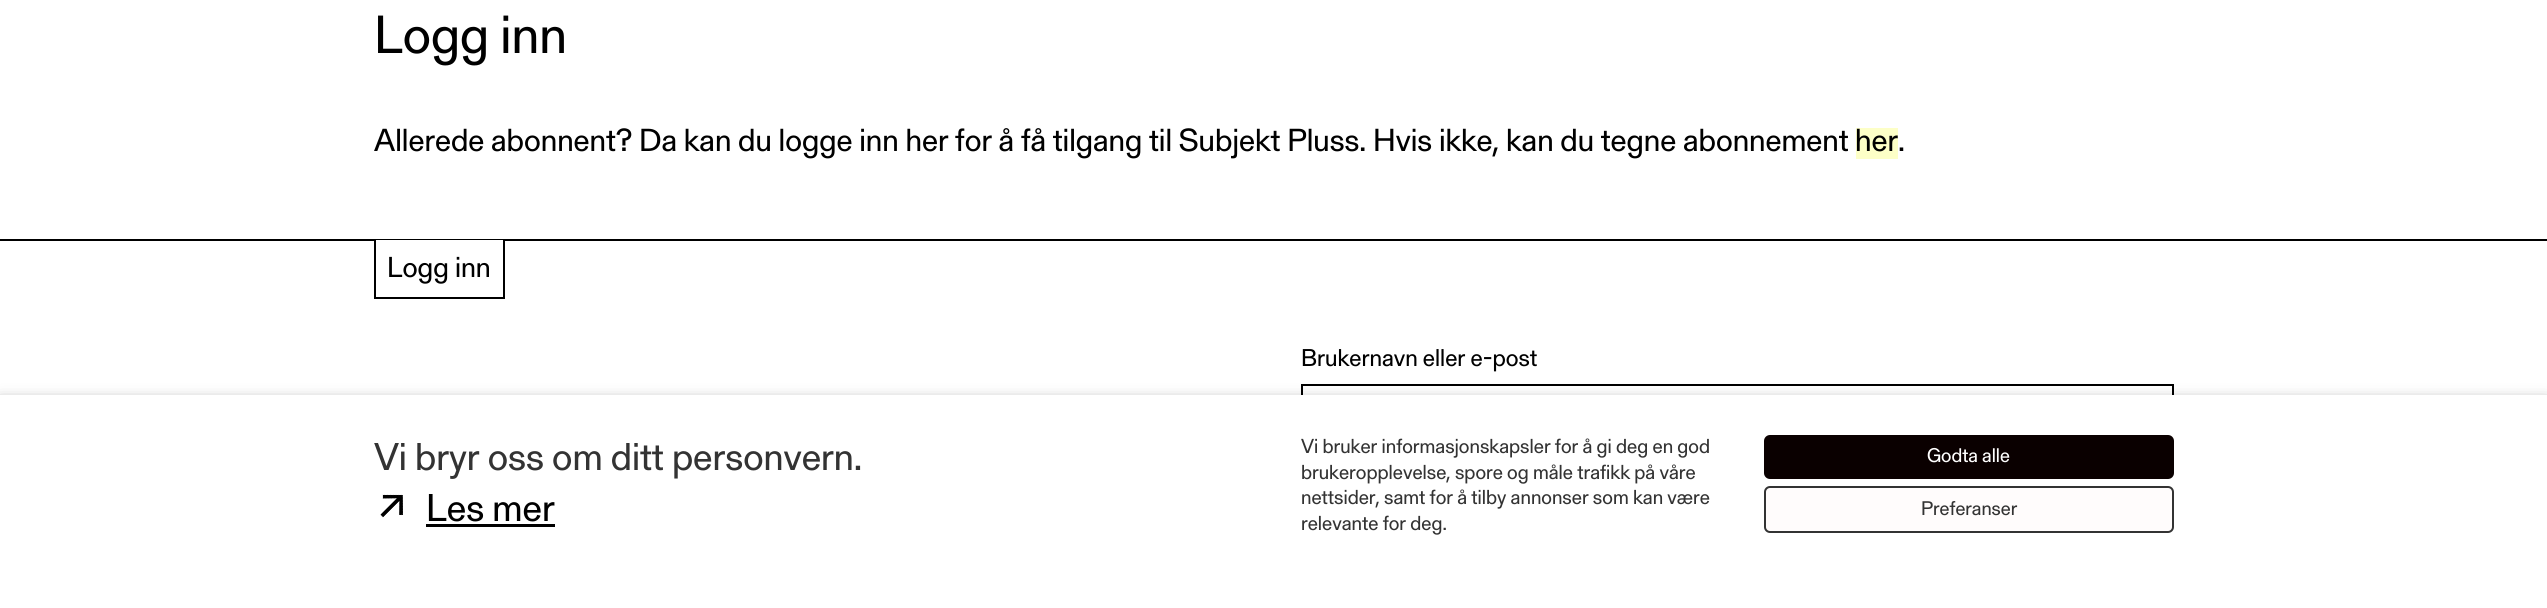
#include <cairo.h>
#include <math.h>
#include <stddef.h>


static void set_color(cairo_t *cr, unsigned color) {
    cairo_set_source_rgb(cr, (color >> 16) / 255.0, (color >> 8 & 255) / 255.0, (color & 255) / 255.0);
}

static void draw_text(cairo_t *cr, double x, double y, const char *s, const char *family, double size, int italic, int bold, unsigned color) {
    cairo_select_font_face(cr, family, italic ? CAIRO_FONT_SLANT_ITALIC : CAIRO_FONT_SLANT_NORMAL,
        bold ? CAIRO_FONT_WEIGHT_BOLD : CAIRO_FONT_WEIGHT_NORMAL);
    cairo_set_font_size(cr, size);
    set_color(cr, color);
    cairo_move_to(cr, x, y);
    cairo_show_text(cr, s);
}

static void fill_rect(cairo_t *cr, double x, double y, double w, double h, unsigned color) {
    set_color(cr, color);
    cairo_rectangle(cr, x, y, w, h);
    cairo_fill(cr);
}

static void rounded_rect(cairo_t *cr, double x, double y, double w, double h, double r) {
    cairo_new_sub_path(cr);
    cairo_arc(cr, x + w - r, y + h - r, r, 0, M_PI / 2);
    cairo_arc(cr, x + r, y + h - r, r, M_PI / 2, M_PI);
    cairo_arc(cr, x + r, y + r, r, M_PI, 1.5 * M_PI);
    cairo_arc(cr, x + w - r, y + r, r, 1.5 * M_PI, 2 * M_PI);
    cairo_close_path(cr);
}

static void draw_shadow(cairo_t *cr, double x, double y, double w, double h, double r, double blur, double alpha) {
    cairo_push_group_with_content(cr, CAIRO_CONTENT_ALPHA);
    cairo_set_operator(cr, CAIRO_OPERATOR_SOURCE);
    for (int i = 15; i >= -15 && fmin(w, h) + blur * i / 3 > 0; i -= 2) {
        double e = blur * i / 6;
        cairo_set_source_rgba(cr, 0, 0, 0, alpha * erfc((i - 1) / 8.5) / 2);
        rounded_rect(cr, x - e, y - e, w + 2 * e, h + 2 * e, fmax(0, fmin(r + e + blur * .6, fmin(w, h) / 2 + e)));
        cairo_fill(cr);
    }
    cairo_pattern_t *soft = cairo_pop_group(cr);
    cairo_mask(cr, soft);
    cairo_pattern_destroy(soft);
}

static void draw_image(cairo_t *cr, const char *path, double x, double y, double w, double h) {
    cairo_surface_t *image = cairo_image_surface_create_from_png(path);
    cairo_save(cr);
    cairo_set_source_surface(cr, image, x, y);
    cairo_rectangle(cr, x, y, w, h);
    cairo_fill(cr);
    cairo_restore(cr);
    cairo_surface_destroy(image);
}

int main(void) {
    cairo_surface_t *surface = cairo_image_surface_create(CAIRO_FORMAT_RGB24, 2547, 608);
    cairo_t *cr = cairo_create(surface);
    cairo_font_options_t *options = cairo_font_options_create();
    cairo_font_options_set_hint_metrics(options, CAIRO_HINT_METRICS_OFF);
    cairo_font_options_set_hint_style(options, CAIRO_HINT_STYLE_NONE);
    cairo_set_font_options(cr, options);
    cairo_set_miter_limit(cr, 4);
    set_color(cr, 0xFFFFFF);
    cairo_paint(cr);
    draw_text(cr, 374, 53, "Logg inn", "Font", 53, 0, 0, 0x000000);
    draw_text(cr, 374, 151, "Allerede abonnent? Da kan du logge inn her for å få tilgang til Subjekt Pluss. Hvis ikke, kan du tegne abonnement", "Font", 31.5, 0, 0, 0x000000);
    fill_rect(cr, 1856, 128, 42, 31, 0xFDFFC7);
    draw_text(cr, 1855, 151, "her.", "Font", 31.5, 0, 0, 0x000000);
    fill_rect(cr, 0, 239, 2547, 2, 0x000000);
    fill_rect(cr, 376, 240, 127, 1, 0xFFFFFF);
    fill_rect(cr, 503, 240, 2, 59, 0x000000);
    fill_rect(cr, 374, 297, 130, 2, 0x000000);
    fill_rect(cr, 374, 240, 2, 59, 0x000000);
    draw_text(cr, 387, 277, "Logg inn", "Font", 28.5, 0, 0, 0x000000);
    draw_text(cr, 1301, 366, "Brukernavn eller e-post", "Font", 24, 0, 0, 0x000000);
    cairo_rectangle(cr, 1302, 385, 871, 69);
    cairo_stroke(cr);
    set_color(cr, 0x000000);
    draw_shadow(cr, 0, 402, 2547, 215, 0, 7.5, 0.5);
    fill_rect(cr, 0, 395, 2547, 213, 0xFFFFFF);
    draw_text(cr, 374, 470, "Vi bryr oss om ditt personvern.", "Font", 38.25, 0, 0, 0x333333);
    draw_image(cr, "assets/img1.png", 380, 494, 23, 24);
    draw_text(cr, 426, 521, "Les mer", "Font", 38.25, 0, 0, 0x000000);
    fill_rect(cr, 426, 524, 129, 3, 0x000000);
    draw_text(cr, 1301, 453, "Vi bruker informasjonskapsler for å gi deg en god", "Font", 20, 0, 0, 0x333333);
    draw_text(cr, 1301, 479, "brukeropplevelse, spore og måle trafikk på våre", "Font", 20, 0, 0, 0x333333);
    draw_text(cr, 1301, 504, "nettsider, samt for å tilby annonser som kan være", "Font", 20, 0, 0, 0x333333);
    draw_text(cr, 1301, 530, "relevante for deg.", "Font", 20, 0, 0, 0x333333);
    set_color(cr, 0x0A0000);
    rounded_rect(cr, 1764, 435, 410, 44, 6);
    cairo_fill(cr);
    draw_text(cr, 1927, 462, "Godta alle", "Font", 19.5, 0, 0, 0xFFFFFF);
    set_color(cr, 0xFFFCFC);
    rounded_rect(cr, 1765, 487, 408, 45, 5);
    cairo_fill_preserve(cr);
    set_color(cr, 0x333333);
    cairo_stroke(cr);
    draw_text(cr, 1921, 515, "Preferanser", "Font", 19.5, 0, 0, 0x333333);
    cairo_surface_write_to_png(surface, "output.png");
    cairo_font_options_destroy(options);
    cairo_destroy(cr);
    cairo_surface_destroy(surface);
    return 0;
}
